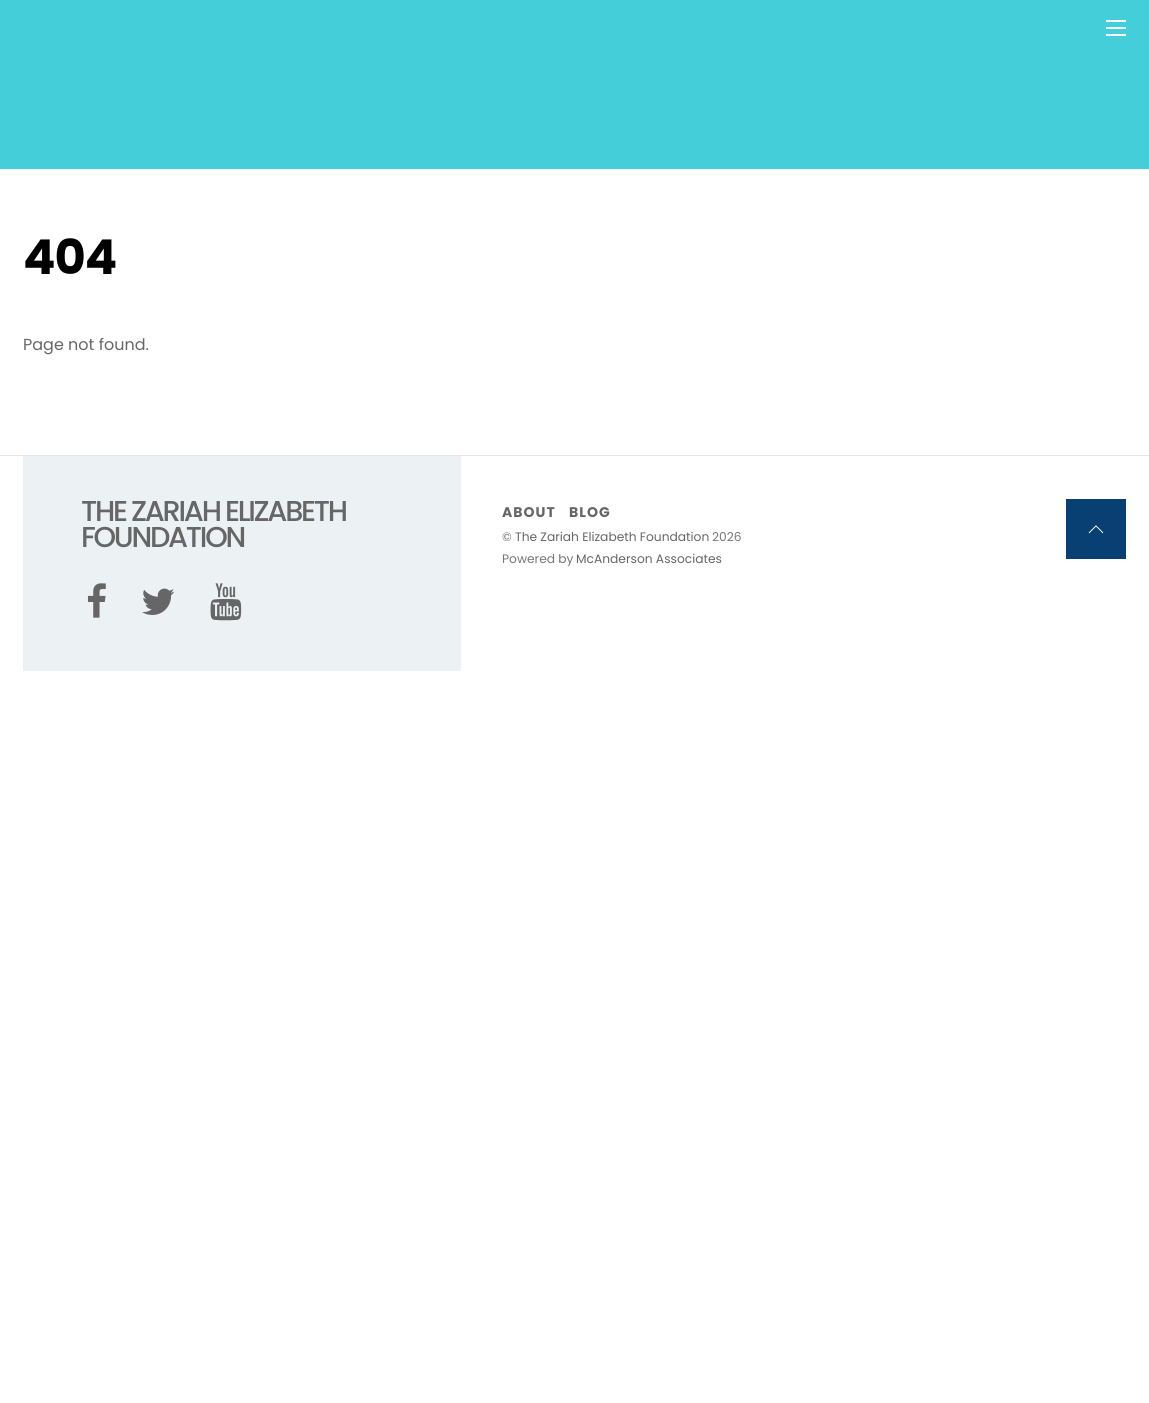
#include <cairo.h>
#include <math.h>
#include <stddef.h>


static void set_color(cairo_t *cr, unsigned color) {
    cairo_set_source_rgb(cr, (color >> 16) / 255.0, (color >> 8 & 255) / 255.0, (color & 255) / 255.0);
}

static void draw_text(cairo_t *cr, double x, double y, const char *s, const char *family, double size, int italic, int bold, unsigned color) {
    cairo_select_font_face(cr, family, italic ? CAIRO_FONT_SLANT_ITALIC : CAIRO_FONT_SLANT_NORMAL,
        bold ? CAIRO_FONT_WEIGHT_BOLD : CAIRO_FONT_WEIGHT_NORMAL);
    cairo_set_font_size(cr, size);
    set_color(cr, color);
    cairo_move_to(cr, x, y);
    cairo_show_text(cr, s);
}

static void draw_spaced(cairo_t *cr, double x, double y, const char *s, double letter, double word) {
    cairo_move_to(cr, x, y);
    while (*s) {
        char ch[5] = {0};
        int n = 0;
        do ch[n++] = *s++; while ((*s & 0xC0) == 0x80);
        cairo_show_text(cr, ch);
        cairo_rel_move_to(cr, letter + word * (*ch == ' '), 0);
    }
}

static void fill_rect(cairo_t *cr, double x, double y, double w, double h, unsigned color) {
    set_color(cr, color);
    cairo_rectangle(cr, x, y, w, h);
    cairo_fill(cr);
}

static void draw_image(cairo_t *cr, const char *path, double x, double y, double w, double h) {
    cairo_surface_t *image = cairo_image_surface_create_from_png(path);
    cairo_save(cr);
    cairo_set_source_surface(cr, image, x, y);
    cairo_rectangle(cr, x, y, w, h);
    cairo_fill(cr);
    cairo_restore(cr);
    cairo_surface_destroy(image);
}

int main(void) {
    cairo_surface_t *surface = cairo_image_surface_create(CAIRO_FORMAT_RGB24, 1149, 1403);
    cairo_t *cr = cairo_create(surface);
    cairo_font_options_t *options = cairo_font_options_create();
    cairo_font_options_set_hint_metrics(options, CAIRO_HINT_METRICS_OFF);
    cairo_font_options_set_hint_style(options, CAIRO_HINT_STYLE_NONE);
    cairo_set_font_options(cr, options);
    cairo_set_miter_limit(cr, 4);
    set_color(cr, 0xFFFFFF);
    cairo_paint(cr);
    fill_rect(cr, 0, 0, 1149, 169, 0x44CEDA);
    fill_rect(cr, 1106, 34, 20, 2, 0xFFFFFF);
    fill_rect(cr, 1106, 20, 20, 2, 0xFFFFFF);
    fill_rect(cr, 1106, 27, 20, 2, 0xFFFFFF);
    cairo_select_font_face(cr, "Poppins", CAIRO_FONT_SLANT_NORMAL, CAIRO_FONT_WEIGHT_BOLD);
    cairo_set_font_size(cr, 48);
    set_color(cr, 0x000000);
    draw_spaced(cr, 23, 274, "404", -1, 0);
    draw_text(cr, 23, 350, "Page not found.", "Poppins", 16, 0, 0, 0x666666);
    fill_rect(cr, 0, 455, 1149, 1, 0xE6E6E6);
    fill_rect(cr, 23, 456, 438, 215, 0xECF2F4);
    cairo_select_font_face(cr, "Poppins Medium", CAIRO_FONT_SLANT_NORMAL, CAIRO_FONT_WEIGHT_NORMAL);
    cairo_set_font_size(cr, 28.75);
    set_color(cr, 0x666666);
    draw_spaced(cr, 81, 521, "THE ZARIAH ELIZABETH", -2.25, 0);
    draw_spaced(cr, 81, 547, "FOUNDATION", -2.25, 0);
    draw_image(cr, "assets/img1.png", 87, 583, 19, 35);
    draw_image(cr, "assets/img2.png", 142, 588, 33, 27);
    draw_image(cr, "assets/img3.png", 210, 583, 32, 38);
    cairo_select_font_face(cr, "Poppins", CAIRO_FONT_SLANT_NORMAL, CAIRO_FONT_WEIGHT_BOLD);
    cairo_set_font_size(cr, 14);
    draw_spaced(cr, 502, 517, "ABOUT", 1, 0);
    draw_spaced(cr, 569, 517, "BLOG", 1, 0);
    draw_text(cr, 502, 541, "©", "Poppins", 12.25, 0, 0, 0x777777);
    draw_text(cr, 515, 541, "The Zariah Elizabeth Foundation", "Poppins", 12.25, 0, 0, 0x666666);
    draw_text(cr, 712, 541, "2026", "Poppins", 12.25, 0, 0, 0x777777);
    draw_text(cr, 502, 563, "Powered by", "Poppins", 12.25, 0, 0, 0x777777);
    draw_text(cr, 576, 563, "McAnderson Associates", "Poppins", 12.25, 0, 0, 0x666666);
    fill_rect(cr, 1066, 499, 60, 60, 0x084073);
    draw_image(cr, "assets/img4.png", 1088, 525, 16, 9);
    cairo_surface_write_to_png(surface, "output.png");
    cairo_font_options_destroy(options);
    cairo_destroy(cr);
    cairo_surface_destroy(surface);
    return 0;
}
